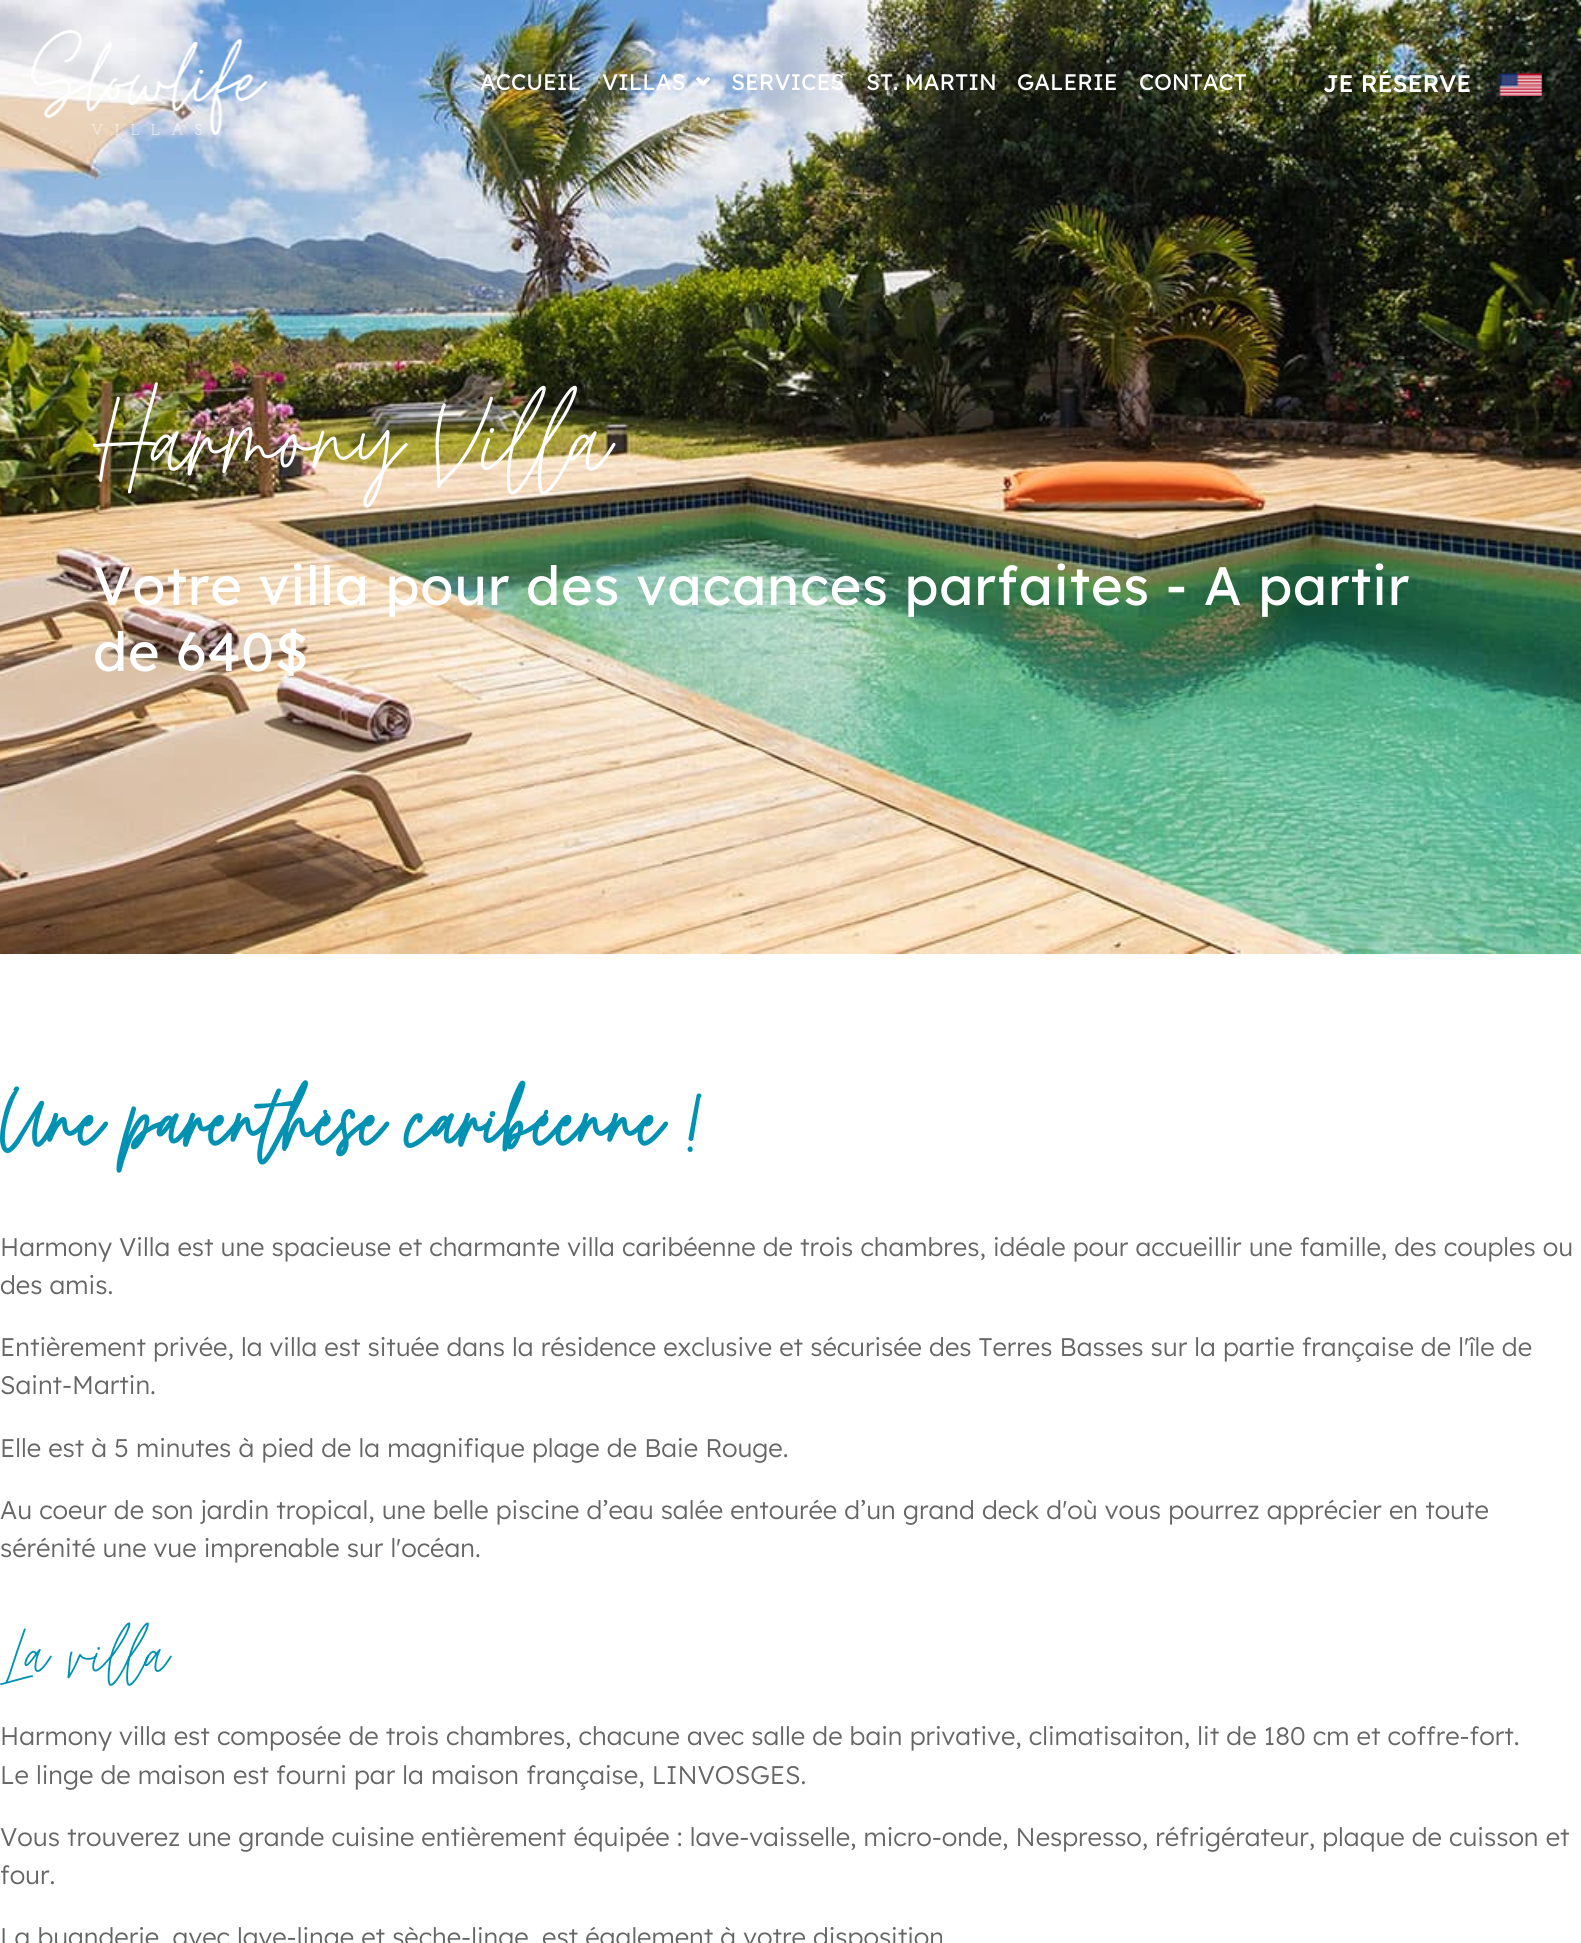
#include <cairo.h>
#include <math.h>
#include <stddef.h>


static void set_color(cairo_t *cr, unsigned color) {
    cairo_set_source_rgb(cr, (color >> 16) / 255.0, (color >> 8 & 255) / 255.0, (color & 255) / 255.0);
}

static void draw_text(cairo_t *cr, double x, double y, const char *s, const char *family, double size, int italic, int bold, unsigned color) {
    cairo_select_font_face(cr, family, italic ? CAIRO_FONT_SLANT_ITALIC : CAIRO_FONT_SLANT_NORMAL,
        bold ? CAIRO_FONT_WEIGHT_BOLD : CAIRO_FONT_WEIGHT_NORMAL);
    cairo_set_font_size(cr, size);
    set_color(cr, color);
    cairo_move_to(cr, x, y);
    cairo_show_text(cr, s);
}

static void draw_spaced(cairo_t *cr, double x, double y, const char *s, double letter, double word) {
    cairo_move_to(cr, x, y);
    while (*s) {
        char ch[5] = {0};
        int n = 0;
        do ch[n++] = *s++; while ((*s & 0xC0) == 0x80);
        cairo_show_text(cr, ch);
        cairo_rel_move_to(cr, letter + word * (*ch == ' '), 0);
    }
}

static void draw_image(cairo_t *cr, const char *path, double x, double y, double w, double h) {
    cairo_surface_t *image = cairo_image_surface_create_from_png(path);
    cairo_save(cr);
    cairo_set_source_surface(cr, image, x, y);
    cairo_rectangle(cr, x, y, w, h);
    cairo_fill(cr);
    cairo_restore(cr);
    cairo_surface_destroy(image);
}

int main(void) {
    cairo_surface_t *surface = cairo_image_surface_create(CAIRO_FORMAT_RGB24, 1581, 1943);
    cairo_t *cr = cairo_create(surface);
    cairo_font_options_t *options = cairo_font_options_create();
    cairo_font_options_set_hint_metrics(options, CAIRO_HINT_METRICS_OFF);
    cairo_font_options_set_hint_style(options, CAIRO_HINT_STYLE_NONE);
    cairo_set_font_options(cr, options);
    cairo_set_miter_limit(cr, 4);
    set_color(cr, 0xFFFFFF);
    cairo_paint(cr);
    draw_image(cr, "assets/img4.png", 0, 0, 1581, 954);
    draw_image(cr, "assets/img1.png", 31, 30, 237, 105);
    draw_text(cr, 480, 90, "ACCUEIL", "Lexend", 22.5, 0, 0, 0xFFFFFF);
    draw_text(cr, 602, 90, "VILLAS", "Lexend", 22.5, 0, 0, 0xFFFFFF);
    draw_image(cr, "assets/img2.png", 696, 77, 14, 9);
    draw_text(cr, 731, 90, "SERVICES", "Lexend", 22.5, 0, 0, 0xFFFFFF);
    draw_text(cr, 866, 90, "ST. MARTIN", "Lexend", 22.5, 0, 0, 0xFFFFFF);
    draw_text(cr, 1017, 90, "GALERIE", "Lexend", 22.5, 0, 0, 0xFFFFFF);
    draw_text(cr, 1139, 90, "CONTACT", "Lexend", 22.5, 0, 0, 0xFFFFFF);
    draw_text(cr, 1323, 92, "JE RÉSERVE", "Lexend Medium", 24, 0, 0, 0xFFFFFF);
    draw_image(cr, "assets/img3.png", 1499, 73, 43, 23);
    cairo_select_font_face(cr, "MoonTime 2", CAIRO_FONT_SLANT_NORMAL, CAIRO_FONT_WEIGHT_NORMAL);
    cairo_set_font_size(cr, 129);
    draw_spaced(cr, 93, 483, "Harmony Villa", -0.6, 0);
    cairo_select_font_face(cr, "Lexend", CAIRO_FONT_SLANT_NORMAL, CAIRO_FONT_WEIGHT_NORMAL);
    cairo_set_font_size(cr, 54);
    draw_spaced(cr, 93, 605, "Votre villa pour des vacances parfaites - A partir", 0.75, 0);
    draw_spaced(cr, 93, 671, "de 640$", 0.75, 0);
    draw_text(cr, 0, 1152, "Une parenthèse caribéenne !", "MoonTime 2", 90, 0, 1, 0x0091B3);
    draw_text(cr, 0, 1256, "Harmony Villa est une spacieuse et charmante villa caribéenne de trois chambres, idéale pour accueillir une famille, des couples ou", "Lexend Light", 25.5, 0, 0, 0x666666);
    draw_text(cr, 0, 1294, "des amis.", "Lexend Light", 25.5, 0, 0, 0x666666);
    draw_text(cr, 0, 1356, "Entièrement privée, la villa est située dans la résidence exclusive et sécurisée des Terres Basses sur la partie française de l'île de", "Lexend Light", 25.5, 0, 0, 0x666666);
    draw_text(cr, 0, 1394, "Saint-Martin.", "Lexend Light", 25.5, 0, 0, 0x666666);
    draw_text(cr, 0, 1457, "Elle est à 5 minutes à pied de la magnifique plage de Baie Rouge.", "Lexend Light", 25.5, 0, 0, 0x666666);
    draw_text(cr, 0, 1519, "Au coeur de son jardin tropical, une belle piscine d’eau salée entourée d’un grand deck d'où vous pourrez apprécier en toute", "Lexend Light", 25.5, 0, 0, 0x666666);
    draw_text(cr, 0, 1557, "sérénité une vue imprenable sur l'océan.", "Lexend Light", 25.5, 0, 0, 0x666666);
    draw_text(cr, 0, 1679, "La villa", "MoonTime 2", 75, 0, 0, 0x0091B3);
    draw_text(cr, 0, 1745, "Harmony villa est composée de trois chambres, chacune avec salle de bain privative, climatisaiton, lit de 180 cm et coffre-fort.", "Lexend Light", 25.5, 0, 0, 0x666666);
    draw_text(cr, 0, 1784, "Le linge de maison est fourni par la maison française, LINVOSGES.", "Lexend Light", 25.5, 0, 0, 0x666666);
    draw_text(cr, 0, 1846, "Vous trouverez une grande cuisine entièrement équipée : lave-vaisselle, micro-onde, Nespresso, réfrigérateur, plaque de cuisson et", "Lexend Light", 25.5, 0, 0, 0x666666);
    draw_text(cr, 0, 1884, "four.", "Lexend Light", 25.5, 0, 0, 0x666666);
    draw_text(cr, 0, 1946, "La buanderie, avec lave-linge et sèche-linge, est également à votre disposition", "Lexend Light", 25.5, 0, 0, 0x666666);
    cairo_surface_write_to_png(surface, "output.png");
    cairo_font_options_destroy(options);
    cairo_destroy(cr);
    cairo_surface_destroy(surface);
    return 0;
}
